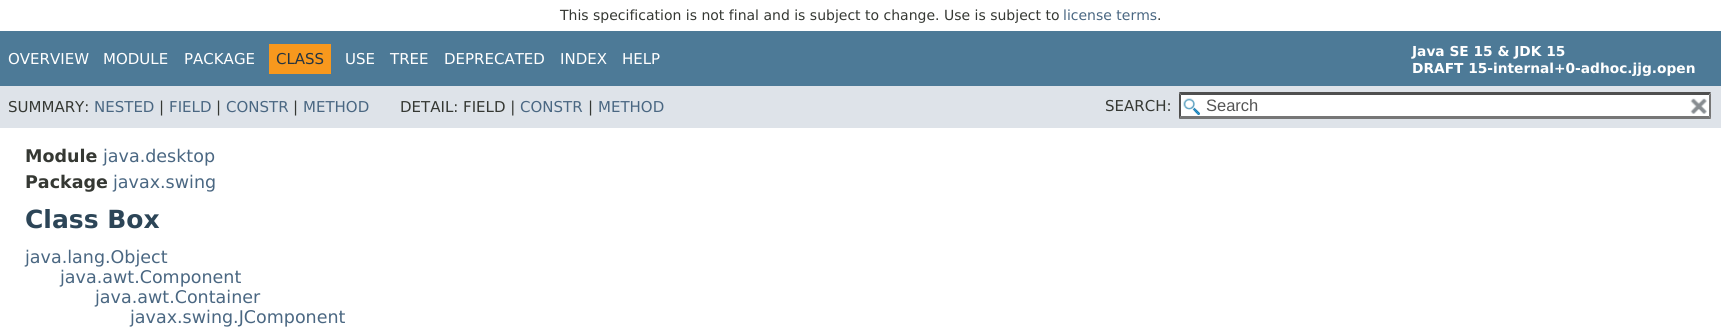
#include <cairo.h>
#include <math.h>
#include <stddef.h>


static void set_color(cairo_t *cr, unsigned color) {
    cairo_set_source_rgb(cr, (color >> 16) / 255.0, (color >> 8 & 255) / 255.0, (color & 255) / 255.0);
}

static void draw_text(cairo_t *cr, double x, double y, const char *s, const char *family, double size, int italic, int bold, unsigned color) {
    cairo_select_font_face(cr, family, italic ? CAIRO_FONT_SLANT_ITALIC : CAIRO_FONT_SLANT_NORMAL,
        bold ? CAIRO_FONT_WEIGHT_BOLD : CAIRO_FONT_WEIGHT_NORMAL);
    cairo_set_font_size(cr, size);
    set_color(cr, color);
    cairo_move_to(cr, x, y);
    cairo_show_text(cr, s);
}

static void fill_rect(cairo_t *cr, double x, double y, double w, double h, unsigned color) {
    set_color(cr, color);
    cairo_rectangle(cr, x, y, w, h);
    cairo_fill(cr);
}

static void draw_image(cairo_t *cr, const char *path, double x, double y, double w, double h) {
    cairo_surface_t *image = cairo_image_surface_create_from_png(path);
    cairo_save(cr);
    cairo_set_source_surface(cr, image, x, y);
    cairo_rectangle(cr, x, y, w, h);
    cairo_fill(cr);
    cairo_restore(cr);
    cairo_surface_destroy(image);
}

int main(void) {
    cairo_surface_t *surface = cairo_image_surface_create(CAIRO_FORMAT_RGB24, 1721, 335);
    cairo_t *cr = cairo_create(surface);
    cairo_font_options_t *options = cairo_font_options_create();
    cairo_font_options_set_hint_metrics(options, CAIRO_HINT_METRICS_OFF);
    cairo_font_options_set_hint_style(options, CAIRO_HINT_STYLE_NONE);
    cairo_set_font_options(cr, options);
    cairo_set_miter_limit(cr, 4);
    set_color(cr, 0xFFFFFF);
    cairo_paint(cr);
    draw_text(cr, 560, 20, "This specification is not final and is subject to change. Use is subject to", "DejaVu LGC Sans", 14, 0, 0, 0x353833);
    draw_text(cr, 1063, 20, "license terms", "DejaVu LGC Sans", 14, 0, 0, 0x4A6782);
    draw_text(cr, 1157, 20, ".", "DejaVu LGC Sans", 14, 0, 0, 0x353833);
    fill_rect(cr, 0, 31, 1721, 55, 0x4D7A97);
    draw_text(cr, 8, 64, "OVERVIEW", "DejaVu LGC Sans", 15, 0, 0, 0xFFFFFF);
    draw_text(cr, 103, 64, "MODULE", "DejaVu LGC Sans", 15, 0, 0, 0xFFFFFF);
    draw_text(cr, 184, 64, "PACKAGE", "DejaVu LGC Sans", 15, 0, 0, 0xFFFFFF);
    fill_rect(cr, 269, 44, 62, 30, 0xF8981D);
    draw_text(cr, 276, 64, "CLASS", "DejaVu LGC Sans", 15, 0, 0, 0x253441);
    draw_text(cr, 345, 64, "USE", "DejaVu LGC Sans", 15, 0, 0, 0xFFFFFF);
    draw_text(cr, 390, 64, "TREE", "DejaVu LGC Sans", 15, 0, 0, 0xFFFFFF);
    draw_text(cr, 444, 64, "DEPRECATED", "DejaVu LGC Sans", 15, 0, 0, 0xFFFFFF);
    draw_text(cr, 560, 64, "INDEX", "DejaVu LGC Sans", 15, 0, 0, 0xFFFFFF);
    draw_text(cr, 622, 64, "HELP", "DejaVu LGC Sans", 15, 0, 0, 0xFFFFFF);
    draw_text(cr, 1412, 56, "Java SE 15 & JDK 15", "DejaVu LGC Sans", 13.75, 0, 1, 0xFFFFFF);
    draw_text(cr, 1412, 73, "DRAFT 15-internal+0-adhoc.jjg.open", "DejaVu LGC Sans", 13.75, 0, 1, 0xFFFFFF);
    fill_rect(cr, 0, 86, 1721, 42, 0xDEE3E9);
    draw_text(cr, 8, 112, "SUMMARY:", "DejaVu LGC Sans", 15, 0, 0, 0x353833);
    draw_text(cr, 94, 112, "NESTED", "DejaVu LGC Sans", 15, 0, 0, 0x4A6782);
    draw_text(cr, 159, 112, "|", "DejaVu LGC Sans", 15, 0, 0, 0x353833);
    draw_text(cr, 169, 112, "FIELD", "DejaVu LGC Sans", 15, 0, 0, 0x4A6782);
    draw_text(cr, 216, 112, "|", "DejaVu LGC Sans", 15, 0, 0, 0x353833);
    draw_text(cr, 226, 112, "CONSTR", "DejaVu LGC Sans", 15, 0, 0, 0x4A6782);
    draw_text(cr, 293, 112, "|", "DejaVu LGC Sans", 15, 0, 0, 0x353833);
    draw_text(cr, 303, 112, "METHOD", "DejaVu LGC Sans", 15, 0, 0, 0x4A6782);
    draw_text(cr, 400, 112, "DETAIL: FIELD |", "DejaVu LGC Sans", 15, 0, 0, 0x353833);
    draw_text(cr, 520, 112, "CONSTR", "DejaVu LGC Sans", 15, 0, 0, 0x4A6782);
    draw_text(cr, 588, 112, "|", "DejaVu LGC Sans", 15, 0, 0, 0x353833);
    draw_text(cr, 598, 112, "METHOD", "DejaVu LGC Sans", 15, 0, 0, 0x4A6782);
    draw_text(cr, 1105, 111, "SEARCH:", "DejaVu LGC Sans", 15, 0, 0, 0x353833);
    fill_rect(cr, 1179, 93, 532, 26, 0xFFFFFF);
    draw_image(cr, "assets/img1.png", 1183, 98, 17, 17);
    set_color(cr, 0x4F4F4F);
    cairo_new_path(cr);
    cairo_move_to(cr, 1179, 92);
    cairo_line_to(cr, 1711, 92);
    cairo_line_to(cr, 1709, 95);
    cairo_line_to(cr, 1181, 95);
    cairo_close_path(cr);
    cairo_fill(cr);
    set_color(cr, 0x767676);
    cairo_new_path(cr);
    cairo_move_to(cr, 1711, 92.5);
    cairo_line_to(cr, 1711, 119);
    cairo_line_to(cr, 1709, 116);
    cairo_line_to(cr, 1709, 95);
    cairo_close_path(cr);
    cairo_fill(cr);
    cairo_new_path(cr);
    cairo_move_to(cr, 1711, 119);
    cairo_line_to(cr, 1179, 119);
    cairo_line_to(cr, 1181, 116);
    cairo_line_to(cr, 1709, 116);
    cairo_close_path(cr);
    cairo_fill(cr);
    set_color(cr, 0x4F4F4F);
    cairo_new_path(cr);
    cairo_move_to(cr, 1179, 119);
    cairo_line_to(cr, 1179, 92.5);
    cairo_line_to(cr, 1181, 95);
    cairo_line_to(cr, 1181, 116);
    cairo_close_path(cr);
    cairo_fill(cr);
    draw_text(cr, 1206, 111, "Search", "Liberation Sans", 16.5, 0, 0, 0x545454);
    draw_image(cr, "assets/img2.png", 1690, 98, 17, 16);
    draw_text(cr, 25, 162, "Module", "DejaVu LGC Sans", 17.5, 0, 1, 0x353833);
    draw_text(cr, 103, 162, "java.desktop", "DejaVu LGC Sans", 17.5, 0, 0, 0x4A6782);
    draw_text(cr, 25, 188, "Package", "DejaVu LGC Sans", 17.5, 0, 1, 0x353833);
    draw_text(cr, 113, 188, "javax.swing", "DejaVu LGC Sans", 17.5, 0, 0, 0x4A6782);
    draw_text(cr, 25, 228, "Class Box", "DejaVu LGC Sans", 25, 0, 1, 0x2C4557);
    draw_text(cr, 25, 263, "java.lang.Object", "DejaVu LGC Sans", 17.5, 0, 0, 0x4A6782);
    draw_text(cr, 60, 283, "java.awt.Component", "DejaVu LGC Sans", 17.5, 0, 0, 0x4A6782);
    draw_text(cr, 95, 303, "java.awt.Container", "DejaVu LGC Sans", 17.5, 0, 0, 0x4A6782);
    draw_text(cr, 130, 323, "javax.swing.JComponent", "DejaVu LGC Sans", 17.5, 0, 0, 0x4A6782);
    cairo_surface_write_to_png(surface, "output.png");
    cairo_font_options_destroy(options);
    cairo_destroy(cr);
    cairo_surface_destroy(surface);
    return 0;
}
